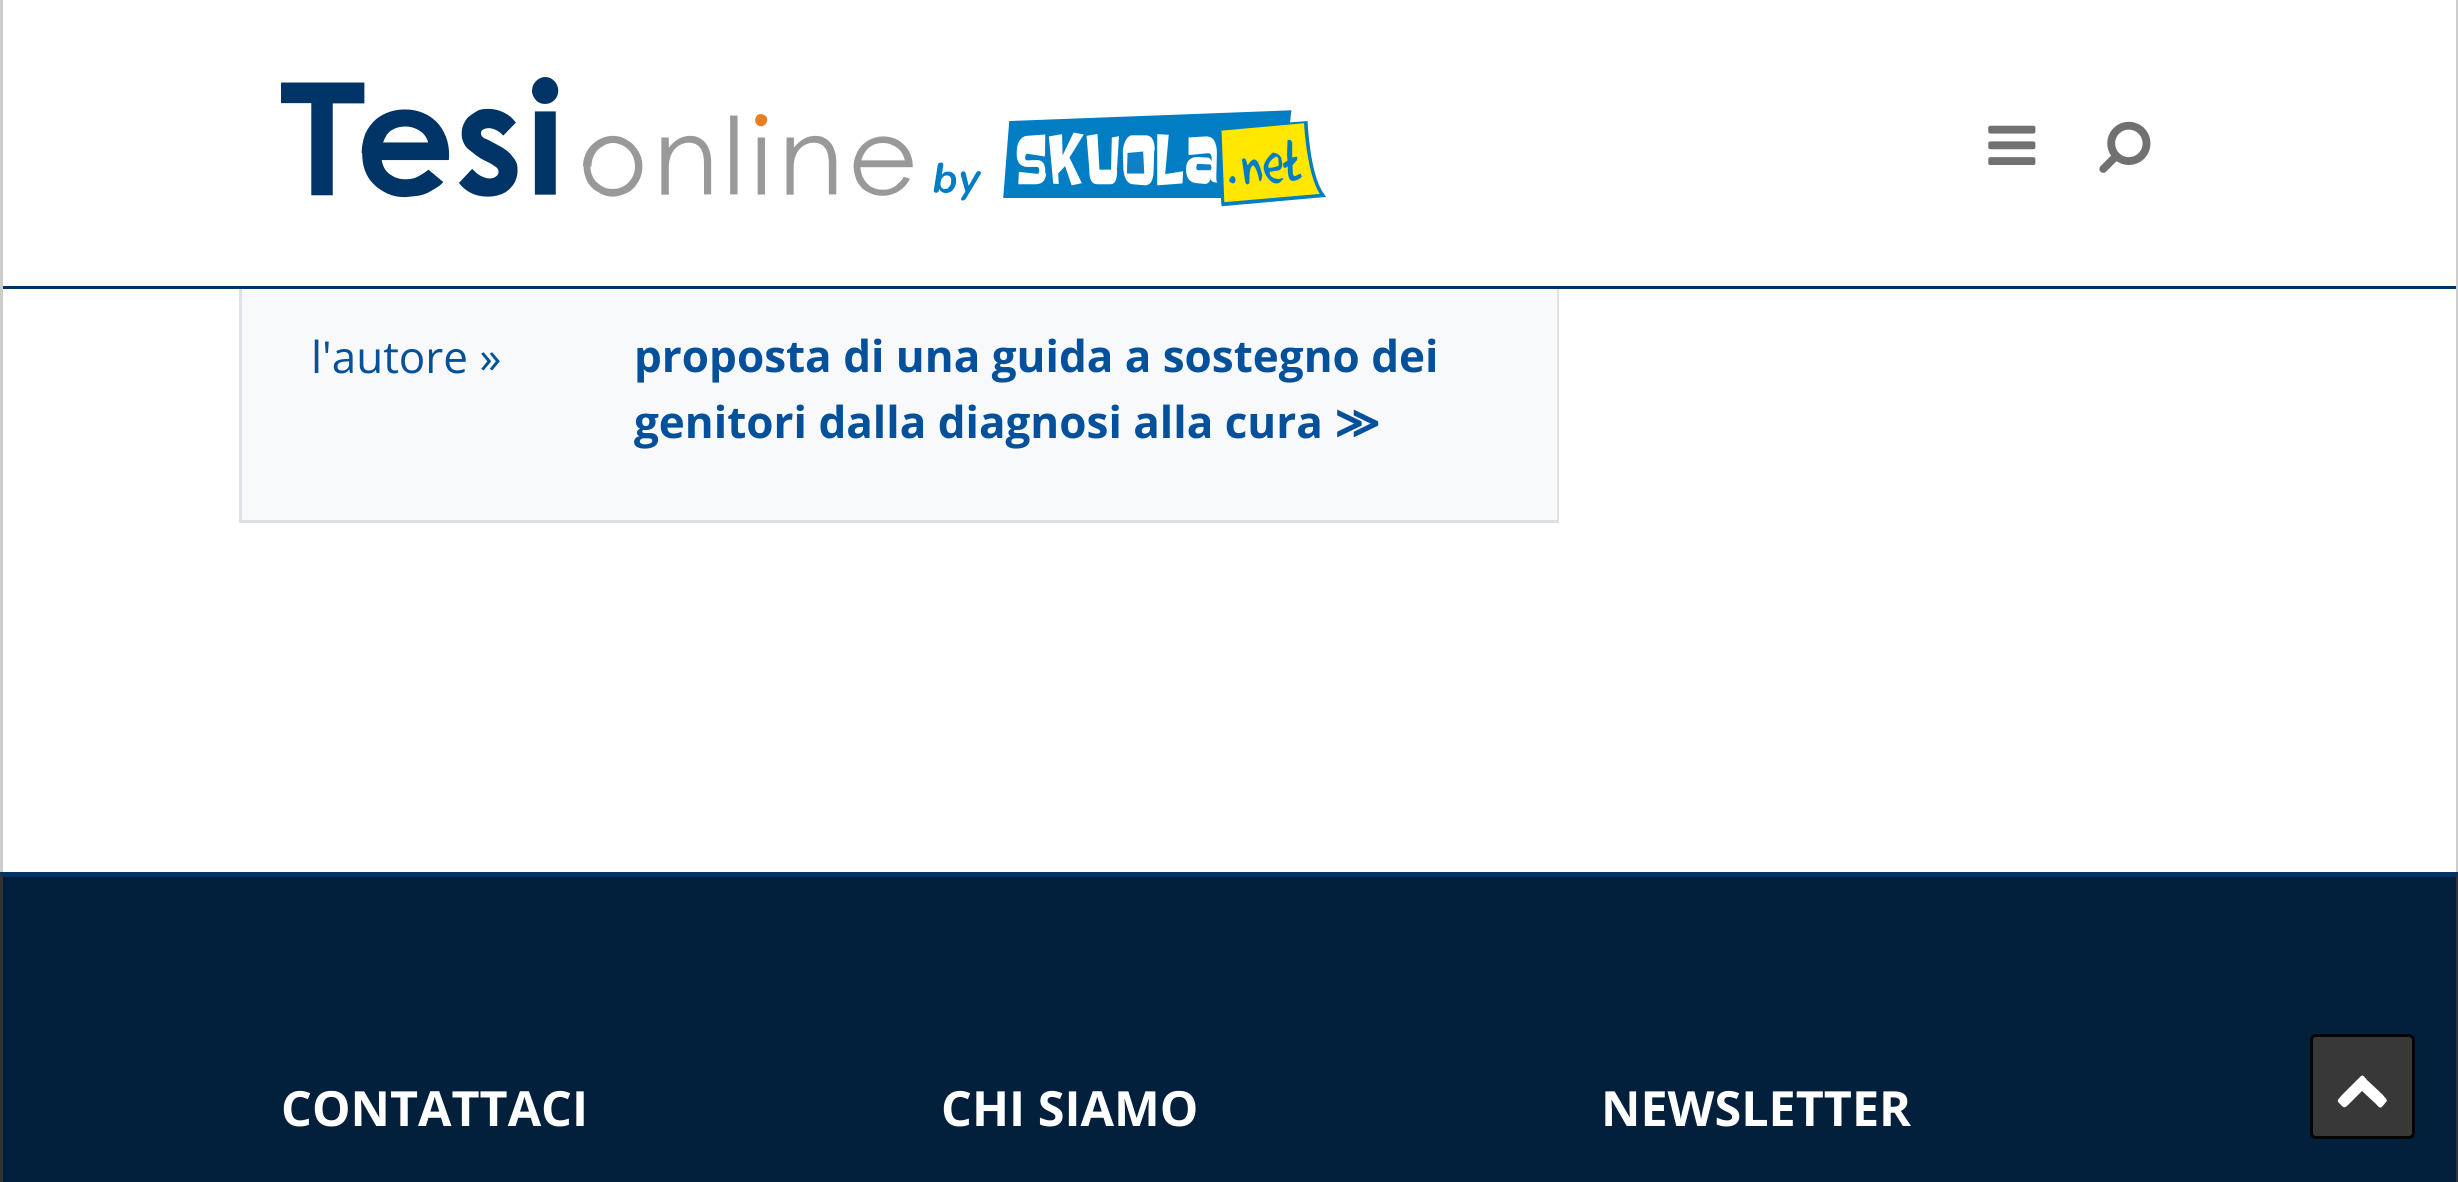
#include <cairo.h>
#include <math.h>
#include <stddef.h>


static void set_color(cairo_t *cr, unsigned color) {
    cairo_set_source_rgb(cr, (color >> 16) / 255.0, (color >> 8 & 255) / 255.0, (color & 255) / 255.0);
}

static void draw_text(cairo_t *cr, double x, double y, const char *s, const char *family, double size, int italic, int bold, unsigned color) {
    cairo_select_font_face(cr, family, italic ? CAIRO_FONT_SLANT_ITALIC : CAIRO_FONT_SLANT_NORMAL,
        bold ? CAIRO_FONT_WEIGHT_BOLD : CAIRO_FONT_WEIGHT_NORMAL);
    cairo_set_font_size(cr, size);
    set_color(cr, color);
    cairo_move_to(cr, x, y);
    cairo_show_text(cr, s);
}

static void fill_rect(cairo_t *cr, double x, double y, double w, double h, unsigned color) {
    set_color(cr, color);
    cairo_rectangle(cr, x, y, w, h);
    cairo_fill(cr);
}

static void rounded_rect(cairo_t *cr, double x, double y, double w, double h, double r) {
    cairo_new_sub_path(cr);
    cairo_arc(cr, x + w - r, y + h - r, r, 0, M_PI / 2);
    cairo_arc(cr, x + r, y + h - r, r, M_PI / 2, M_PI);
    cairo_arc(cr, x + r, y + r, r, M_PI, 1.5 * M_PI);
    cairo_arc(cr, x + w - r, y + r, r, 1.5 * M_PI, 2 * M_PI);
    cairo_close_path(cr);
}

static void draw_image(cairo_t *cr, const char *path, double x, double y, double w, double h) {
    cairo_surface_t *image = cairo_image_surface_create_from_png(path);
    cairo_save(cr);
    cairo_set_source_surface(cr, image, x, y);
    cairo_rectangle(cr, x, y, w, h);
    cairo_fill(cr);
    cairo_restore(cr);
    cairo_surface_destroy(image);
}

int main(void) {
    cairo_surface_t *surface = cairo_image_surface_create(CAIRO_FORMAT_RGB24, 2458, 1182);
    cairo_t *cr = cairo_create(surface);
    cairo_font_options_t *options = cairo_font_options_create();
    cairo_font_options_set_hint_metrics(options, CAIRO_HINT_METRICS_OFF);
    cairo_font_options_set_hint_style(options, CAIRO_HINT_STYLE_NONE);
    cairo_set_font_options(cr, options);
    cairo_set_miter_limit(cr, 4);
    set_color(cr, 0xFFFFFF);
    cairo_paint(cr);
    cairo_rectangle(cr, 240.5, -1.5, 1317, 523);
    set_color(cr, 0xDEE2E6);
    cairo_set_line_width(cr, 3);
    cairo_stroke(cr);
    fill_rect(cr, 239, 0, 1320, 286, 0xFFFFFF);
    fill_rect(cr, 3, 286, 2453, 3, 0x003366);
    draw_image(cr, "assets/img1.png", 281, 77, 1045, 130);
    draw_image(cr, "assets/img2.png", 1988, 125, 48, 40);
    draw_image(cr, "assets/img3.png", 2099, 121, 52, 52);
    fill_rect(cr, 2456, 0, 2, 872, 0xCCCCCC);
    fill_rect(cr, 0, 0, 3, 872, 0xCCCCCC);
    fill_rect(cr, 242, 289, 1315, 231, 0xF8F9FA);
    draw_text(cr, 311, 373, "l'autore »", "Open Sans", 44, 0, 0, 0x05509B);
    draw_text(cr, 634, 372, "proposta di una guida a sostegno dei", "Open Sans", 44, 0, 1, 0x05509B);
    draw_text(cr, 634, 438, "genitori dalla diagnosi alla cura", "Open Sans", 44, 0, 1, 0x05509B);
    draw_text(cr, 1334, 438, "≫", "DejaVu Sans", 44, 0, 1, 0x05509B);
    fill_rect(cr, 0, 872, 2458, 310, 0x021F3C);
    set_color(cr, 0x003366);
    cairo_new_path(cr);
    cairo_move_to(cr, 0, 872);
    cairo_line_to(cr, 2458, 872);
    cairo_line_to(cr, 2456, 877);
    cairo_line_to(cr, 3, 877);
    cairo_close_path(cr);
    cairo_fill(cr);
    set_color(cr, 0x333333);
    cairo_new_path(cr);
    cairo_move_to(cr, 2458, 872);
    cairo_line_to(cr, 2458, 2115);
    cairo_line_to(cr, 2456, 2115);
    cairo_line_to(cr, 2456, 877);
    cairo_close_path(cr);
    cairo_fill(cr);
    cairo_new_path(cr);
    cairo_move_to(cr, 0, 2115);
    cairo_line_to(cr, 0, 872);
    cairo_line_to(cr, 3, 877);
    cairo_line_to(cr, 3, 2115);
    cairo_close_path(cr);
    cairo_fill(cr);
    draw_text(cr, 281, 1126, "CONTATTACI", "Open Sans", 48.5, 0, 1, 0xFFFFFF);
    draw_text(cr, 941, 1126, "CHI SIAMO", "Open Sans", 48.5, 0, 1, 0xFFFFFF);
    draw_text(cr, 1601, 1126, "NEWSLETTER", "Open Sans", 48.5, 0, 1, 0xFFFFFF);
    set_color(cr, 0x383838);
    rounded_rect(cr, 2311.5, 1035.5, 102, 102, 4.5);
    cairo_fill_preserve(cr);
    set_color(cr, 0x040404);
    cairo_stroke(cr);
    set_color(cr, 0xFFFFFF);
    cairo_new_path(cr);
    cairo_move_to(cr, 2386, 1102);
    cairo_curve_to(cr, 2381, 1108, 2381, 1110, 2376, 1104);
    cairo_line_to(cr, 2362, 1091);
    cairo_line_to(cr, 2349, 1104);
    cairo_curve_to(cr, 2344, 1109, 2344, 1108, 2339, 1103);
    cairo_curve_to(cr, 2336, 1100, 2339, 1099, 2342, 1095);
    cairo_line_to(cr, 2357, 1080);
    cairo_curve_to(cr, 2363, 1074, 2362, 1074, 2367, 1080);
    cairo_line_to(cr, 2383, 1095);
    cairo_curve_to(cr, 2383, 1096, 2389, 1100, 2386, 1102);
    cairo_close_path(cr);
    cairo_fill(cr);
    cairo_surface_write_to_png(surface, "output.png");
    cairo_font_options_destroy(options);
    cairo_destroy(cr);
    cairo_surface_destroy(surface);
    return 0;
}
